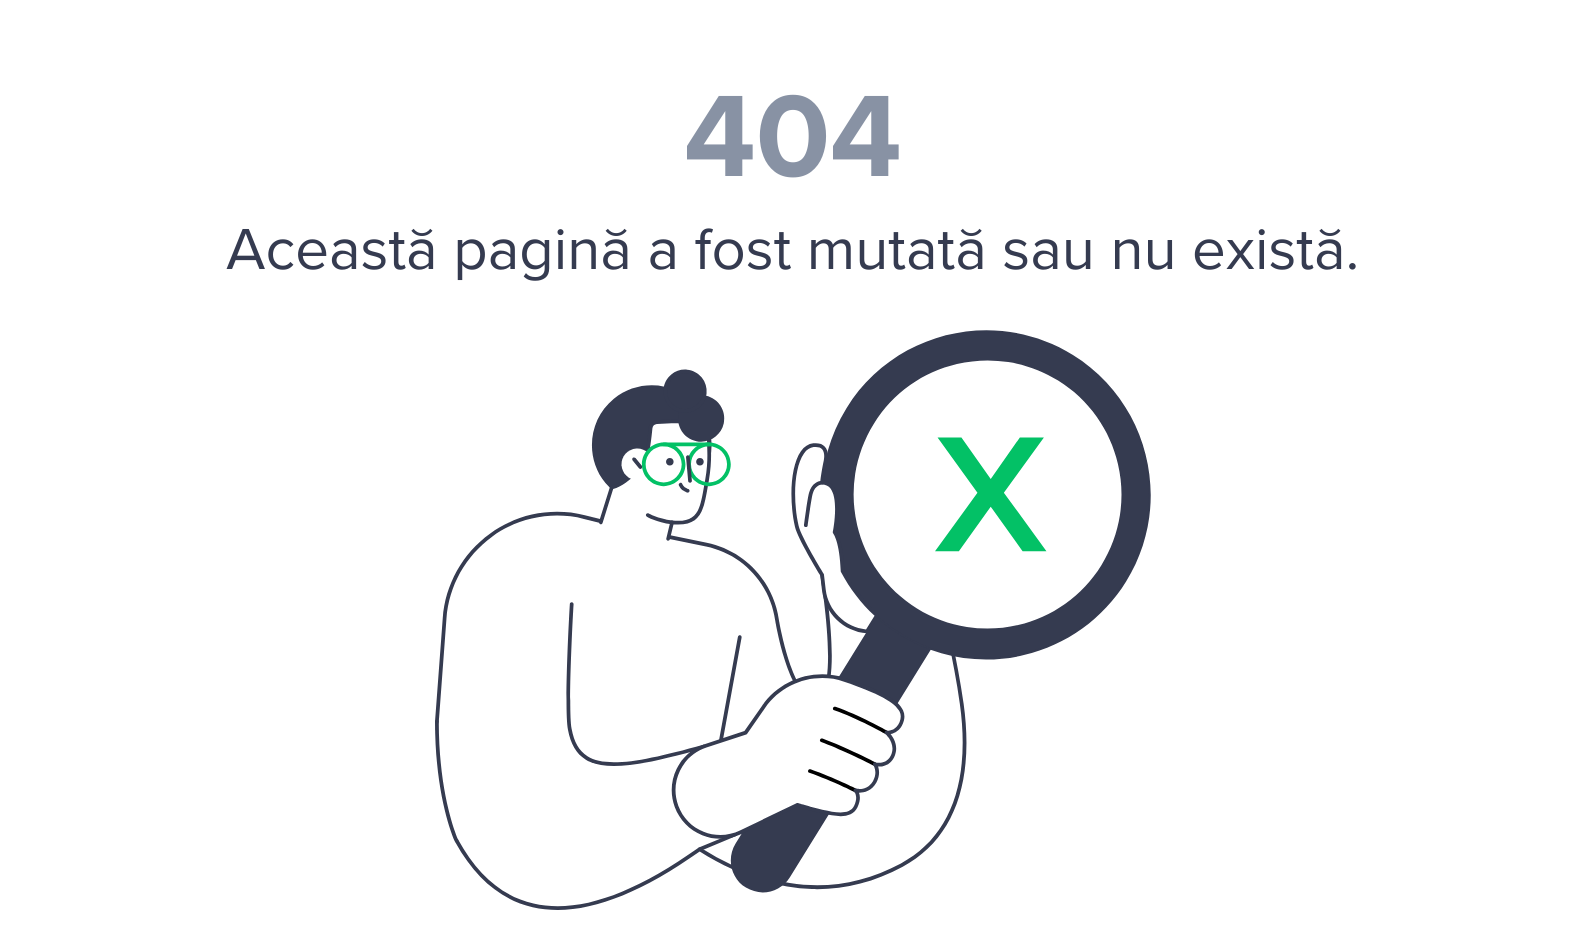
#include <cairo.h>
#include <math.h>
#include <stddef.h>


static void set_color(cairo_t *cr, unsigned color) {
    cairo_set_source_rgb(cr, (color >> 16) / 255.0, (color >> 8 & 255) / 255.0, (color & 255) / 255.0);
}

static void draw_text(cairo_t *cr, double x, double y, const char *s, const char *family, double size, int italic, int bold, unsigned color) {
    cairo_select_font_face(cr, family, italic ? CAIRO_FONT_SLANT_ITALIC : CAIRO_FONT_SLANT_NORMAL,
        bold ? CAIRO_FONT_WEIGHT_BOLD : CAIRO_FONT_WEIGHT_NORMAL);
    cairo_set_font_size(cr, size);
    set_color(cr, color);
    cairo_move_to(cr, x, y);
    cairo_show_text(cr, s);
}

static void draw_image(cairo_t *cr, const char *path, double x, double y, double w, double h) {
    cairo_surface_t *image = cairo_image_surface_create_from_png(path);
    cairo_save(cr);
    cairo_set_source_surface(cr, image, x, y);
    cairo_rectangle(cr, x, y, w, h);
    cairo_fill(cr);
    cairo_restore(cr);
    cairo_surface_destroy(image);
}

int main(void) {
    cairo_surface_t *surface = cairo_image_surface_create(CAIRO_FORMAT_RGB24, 1585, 935);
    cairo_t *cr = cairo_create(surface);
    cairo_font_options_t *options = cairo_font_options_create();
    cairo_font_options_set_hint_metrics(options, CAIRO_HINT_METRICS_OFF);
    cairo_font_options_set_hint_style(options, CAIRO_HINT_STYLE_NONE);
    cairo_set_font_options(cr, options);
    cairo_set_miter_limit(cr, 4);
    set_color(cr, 0xFFFFFF);
    cairo_paint(cr);
    draw_text(cr, 684, 176, "404", "Proxima Nova", 120, 0, 1, 0x8892A4);
    draw_text(cr, 226, 269, "Această pagină a fost mutată sau nu există.", "Proxima Nova", 60, 0, 0, 0x353B50);
    draw_image(cr, "assets/img1.png", 435, 330, 716, 580);
    cairo_surface_write_to_png(surface, "output.png");
    cairo_font_options_destroy(options);
    cairo_destroy(cr);
    cairo_surface_destroy(surface);
    return 0;
}
